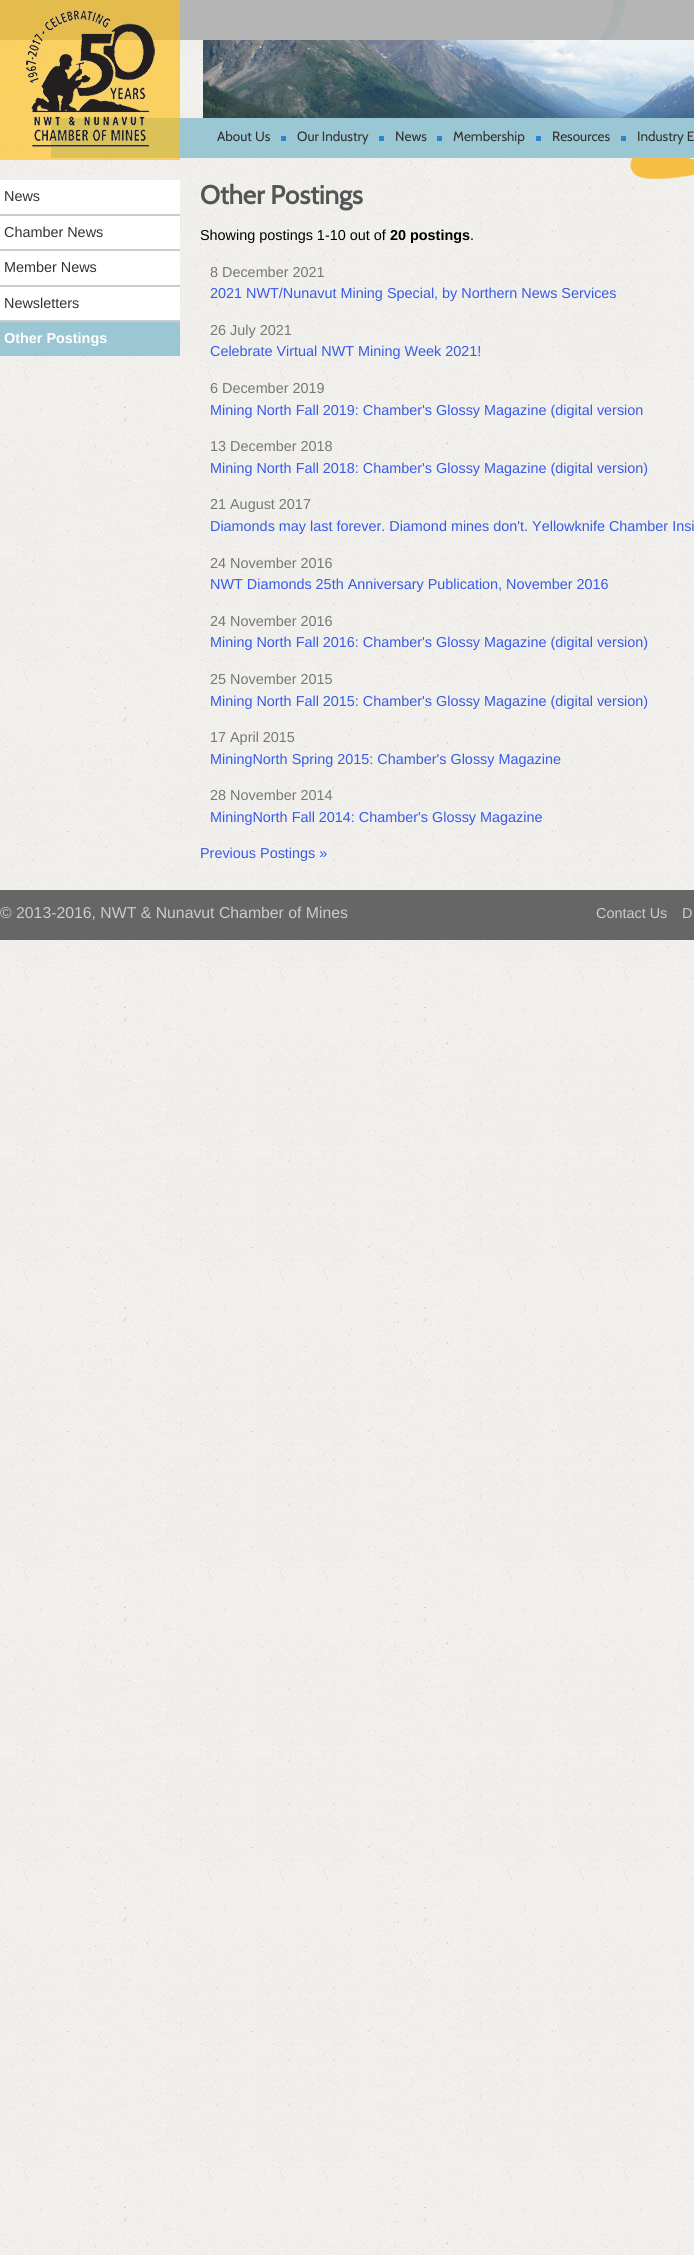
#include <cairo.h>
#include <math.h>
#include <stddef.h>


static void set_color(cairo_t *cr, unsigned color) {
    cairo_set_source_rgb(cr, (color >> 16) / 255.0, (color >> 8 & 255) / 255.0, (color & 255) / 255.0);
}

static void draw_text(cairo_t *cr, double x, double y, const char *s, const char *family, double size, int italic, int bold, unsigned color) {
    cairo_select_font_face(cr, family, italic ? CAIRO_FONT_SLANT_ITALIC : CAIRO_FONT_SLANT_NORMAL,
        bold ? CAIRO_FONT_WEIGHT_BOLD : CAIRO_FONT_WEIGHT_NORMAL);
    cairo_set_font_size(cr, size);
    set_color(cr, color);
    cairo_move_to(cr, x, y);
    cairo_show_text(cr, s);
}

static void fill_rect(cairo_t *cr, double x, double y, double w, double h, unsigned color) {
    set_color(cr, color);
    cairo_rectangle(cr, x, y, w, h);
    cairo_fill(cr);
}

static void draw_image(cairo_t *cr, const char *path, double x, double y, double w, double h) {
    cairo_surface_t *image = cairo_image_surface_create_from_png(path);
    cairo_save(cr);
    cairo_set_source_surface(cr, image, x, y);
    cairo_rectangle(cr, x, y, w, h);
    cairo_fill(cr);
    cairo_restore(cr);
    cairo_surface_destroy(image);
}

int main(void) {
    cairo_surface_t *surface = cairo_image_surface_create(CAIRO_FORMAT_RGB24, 694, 2255);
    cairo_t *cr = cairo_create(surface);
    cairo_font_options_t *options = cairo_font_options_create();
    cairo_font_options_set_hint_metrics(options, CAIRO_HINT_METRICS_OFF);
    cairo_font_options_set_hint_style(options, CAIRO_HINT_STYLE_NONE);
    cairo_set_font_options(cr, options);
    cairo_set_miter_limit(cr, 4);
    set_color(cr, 0xFFFFFF);
    cairo_paint(cr);
    draw_image(cr, "assets/img1.png", 0, 0, 694, 2255);
    draw_image(cr, "assets/img2.png", 0, 0, 694, 179);
    cairo_set_source_rgba(cr, 1, 0.745, 0.067, 0.63);
    cairo_rectangle(cr, 0, 0, 180, 160);
    cairo_fill(cr);
    draw_image(cr, "assets/img3.png", 26, 10, 129, 137);
    draw_image(cr, "assets/img4.png", 203, 40, 491, 78);
    draw_text(cr, 217, 141, "About Us", "Cabin", 13.5, 0, 0, 0x333333);
    fill_rect(cr, 281, 136, 5, 5, 0x2D87C6);
    draw_text(cr, 297, 141, "Our Industry", "Cabin", 13.5, 0, 0, 0x333333);
    fill_rect(cr, 379, 136, 5, 5, 0x2D87C6);
    draw_text(cr, 395, 141, "News", "Cabin", 13.5, 0, 0, 0x333333);
    fill_rect(cr, 437, 136, 5, 5, 0x2D87C6);
    draw_text(cr, 453, 141, "Membership", "Cabin", 13.5, 0, 0, 0x333333);
    fill_rect(cr, 536, 136, 5, 5, 0x2D87C6);
    draw_text(cr, 552, 141, "Resources", "Cabin", 13.5, 0, 0, 0x333333);
    fill_rect(cr, 621, 136, 5, 5, 0x2D87C6);
    draw_text(cr, 637, 141, "Industry E", "Cabin", 13.5, 0, 0, 0x333333);
    fill_rect(cr, 0, 180, 180, 34, 0xFFFFFF);
    draw_text(cr, 4, 201, "News", "Liberation Sans", 14.4, 0, 0, 0x333333);
    fill_rect(cr, 0, 214, 180, 2, 0xCCCCCC);
    fill_rect(cr, 0, 216, 180, 33, 0xFFFFFF);
    draw_text(cr, 4, 237, "Chamber News", "Liberation Sans", 14.4, 0, 0, 0x333333);
    fill_rect(cr, 0, 249, 180, 2, 0xCCCCCC);
    fill_rect(cr, 0, 251, 180, 34, 0xFFFFFF);
    draw_text(cr, 4, 272, "Member News", "Liberation Sans", 14.4, 0, 0, 0x333333);
    fill_rect(cr, 0, 285, 180, 2, 0xCCCCCC);
    fill_rect(cr, 0, 287, 180, 33, 0xFFFFFF);
    draw_text(cr, 4, 308, "Newsletters", "Liberation Sans", 14.4, 0, 0, 0x333333);
    fill_rect(cr, 0, 320, 180, 2, 0xCCCCCC);
    fill_rect(cr, 0, 322, 180, 34, 0x9BC6D3);
    draw_text(cr, 4, 343, "Other Postings", "Liberation Sans", 14.4, 0, 1, 0xFFFFFF);
    draw_text(cr, 200, 204, "Other Postings", "Cabin", 26, 0, 1, 0x555555);
    draw_text(cr, 200, 240, "Showing postings 1‐10 out of", "Liberation Sans", 14.4, 0, 0, 0x000000);
    draw_text(cr, 390, 240, "20 postings", "Liberation Sans", 14.4, 0, 1, 0x000000);
    draw_text(cr, 470, 240, ".", "Liberation Sans", 14.4, 0, 0, 0x000000);
    draw_text(cr, 210, 277, "8 December 2021", "Liberation Sans", 14.4, 0, 0, 0x777777);
    draw_text(cr, 210, 298, "2021 NWT/Nunavut Mining Special, by Northern News Services", "Liberation Sans", 14.4, 0, 0, 0x385BE9);
    draw_text(cr, 210, 335, "26 July 2021", "Liberation Sans", 14.4, 0, 0, 0x777777);
    draw_text(cr, 210, 356, "Celebrate Virtual NWT Mining Week 2021!", "Liberation Sans", 14.4, 0, 0, 0x385BE9);
    draw_text(cr, 210, 393, "6 December 2019", "Liberation Sans", 14.4, 0, 0, 0x777777);
    draw_text(cr, 210, 415, "Mining North Fall 2019: Chamber's Glossy Magazine (digital version", "Liberation Sans", 14.4, 0, 0, 0x385BE9);
    draw_text(cr, 210, 451, "13 December 2018", "Liberation Sans", 14.4, 0, 0, 0x777777);
    draw_text(cr, 210, 473, "Mining North Fall 2018: Chamber's Glossy Magazine (digital version)", "Liberation Sans", 14.4, 0, 0, 0x385BE9);
    draw_text(cr, 210, 509, "21 August 2017", "Liberation Sans", 14.4, 0, 0, 0x777777);
    draw_text(cr, 210, 531, "Diamonds may last forever. Diamond mines don't. Yellowknife Chamber Insi", "Liberation Sans", 14.4, 0, 0, 0x385BE9);
    draw_text(cr, 210, 568, "24 November 2016", "Liberation Sans", 14.4, 0, 0, 0x777777);
    draw_text(cr, 210, 589, "NWT Diamonds 25th Anniversary Publication, November 2016", "Liberation Sans", 14.4, 0, 0, 0x385BE9);
    draw_text(cr, 210, 626, "24 November 2016", "Liberation Sans", 14.4, 0, 0, 0x777777);
    draw_text(cr, 210, 647, "Mining North Fall 2016: Chamber's Glossy Magazine (digital version)", "Liberation Sans", 14.4, 0, 0, 0x385BE9);
    draw_text(cr, 210, 684, "25 November 2015", "Liberation Sans", 14.4, 0, 0, 0x777777);
    draw_text(cr, 210, 706, "Mining North Fall 2015: Chamber's Glossy Magazine (digital version)", "Liberation Sans", 14.4, 0, 0, 0x385BE9);
    draw_text(cr, 210, 742, "17 April 2015", "Liberation Sans", 14.4, 0, 0, 0x777777);
    draw_text(cr, 210, 764, "MiningNorth Spring 2015: Chamber's Glossy Magazine", "Liberation Sans", 14.4, 0, 0, 0x385BE9);
    draw_text(cr, 210, 800, "28 November 2014", "Liberation Sans", 14.4, 0, 0, 0x777777);
    draw_text(cr, 210, 822, "MiningNorth Fall 2014: Chamber's Glossy Magazine", "Liberation Sans", 14.4, 0, 0, 0x385BE9);
    draw_text(cr, 200, 858, "Previous Postings »", "Liberation Sans", 14.4, 0, 0, 0x385BE9);
    fill_rect(cr, 0, 890, 694, 50, 0x666666);
    draw_text(cr, 0, 918, "© 2013-2016, NWT & Nunavut Chamber of Mines", "Liberation Sans", 15.8, 0, 0, 0xCCCCCC);
    draw_text(cr, 596, 918, "Contact Us", "Liberation Sans", 14.4, 0, 0, 0xCCCCCC);
    draw_text(cr, 682, 918, "D", "Liberation Sans", 14.4, 0, 0, 0xCCCCCC);
    cairo_surface_write_to_png(surface, "output.png");
    cairo_font_options_destroy(options);
    cairo_destroy(cr);
    cairo_surface_destroy(surface);
    return 0;
}
